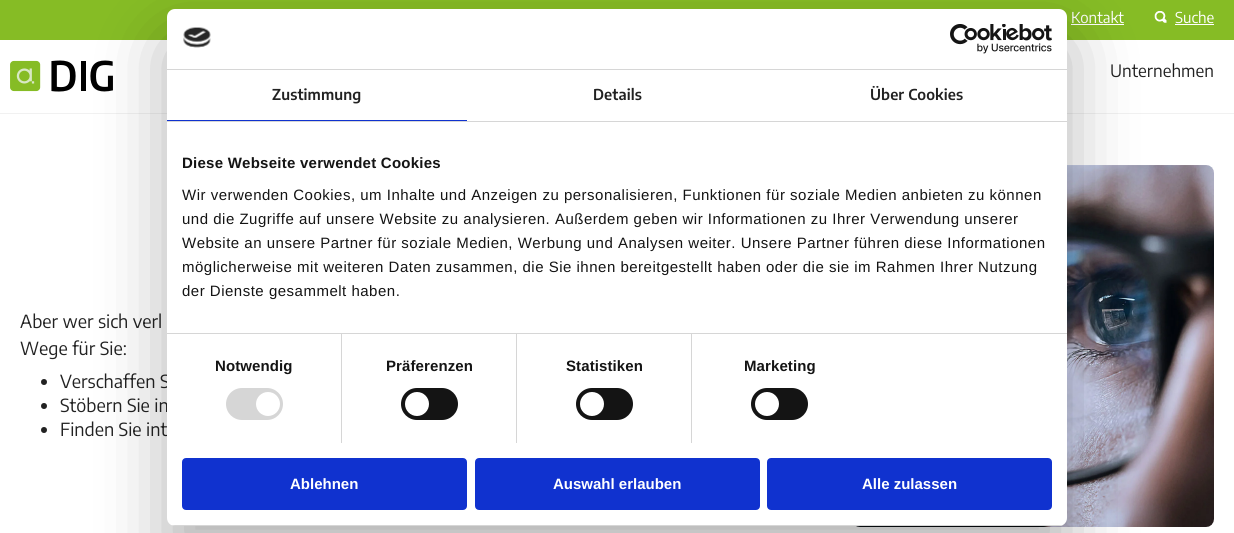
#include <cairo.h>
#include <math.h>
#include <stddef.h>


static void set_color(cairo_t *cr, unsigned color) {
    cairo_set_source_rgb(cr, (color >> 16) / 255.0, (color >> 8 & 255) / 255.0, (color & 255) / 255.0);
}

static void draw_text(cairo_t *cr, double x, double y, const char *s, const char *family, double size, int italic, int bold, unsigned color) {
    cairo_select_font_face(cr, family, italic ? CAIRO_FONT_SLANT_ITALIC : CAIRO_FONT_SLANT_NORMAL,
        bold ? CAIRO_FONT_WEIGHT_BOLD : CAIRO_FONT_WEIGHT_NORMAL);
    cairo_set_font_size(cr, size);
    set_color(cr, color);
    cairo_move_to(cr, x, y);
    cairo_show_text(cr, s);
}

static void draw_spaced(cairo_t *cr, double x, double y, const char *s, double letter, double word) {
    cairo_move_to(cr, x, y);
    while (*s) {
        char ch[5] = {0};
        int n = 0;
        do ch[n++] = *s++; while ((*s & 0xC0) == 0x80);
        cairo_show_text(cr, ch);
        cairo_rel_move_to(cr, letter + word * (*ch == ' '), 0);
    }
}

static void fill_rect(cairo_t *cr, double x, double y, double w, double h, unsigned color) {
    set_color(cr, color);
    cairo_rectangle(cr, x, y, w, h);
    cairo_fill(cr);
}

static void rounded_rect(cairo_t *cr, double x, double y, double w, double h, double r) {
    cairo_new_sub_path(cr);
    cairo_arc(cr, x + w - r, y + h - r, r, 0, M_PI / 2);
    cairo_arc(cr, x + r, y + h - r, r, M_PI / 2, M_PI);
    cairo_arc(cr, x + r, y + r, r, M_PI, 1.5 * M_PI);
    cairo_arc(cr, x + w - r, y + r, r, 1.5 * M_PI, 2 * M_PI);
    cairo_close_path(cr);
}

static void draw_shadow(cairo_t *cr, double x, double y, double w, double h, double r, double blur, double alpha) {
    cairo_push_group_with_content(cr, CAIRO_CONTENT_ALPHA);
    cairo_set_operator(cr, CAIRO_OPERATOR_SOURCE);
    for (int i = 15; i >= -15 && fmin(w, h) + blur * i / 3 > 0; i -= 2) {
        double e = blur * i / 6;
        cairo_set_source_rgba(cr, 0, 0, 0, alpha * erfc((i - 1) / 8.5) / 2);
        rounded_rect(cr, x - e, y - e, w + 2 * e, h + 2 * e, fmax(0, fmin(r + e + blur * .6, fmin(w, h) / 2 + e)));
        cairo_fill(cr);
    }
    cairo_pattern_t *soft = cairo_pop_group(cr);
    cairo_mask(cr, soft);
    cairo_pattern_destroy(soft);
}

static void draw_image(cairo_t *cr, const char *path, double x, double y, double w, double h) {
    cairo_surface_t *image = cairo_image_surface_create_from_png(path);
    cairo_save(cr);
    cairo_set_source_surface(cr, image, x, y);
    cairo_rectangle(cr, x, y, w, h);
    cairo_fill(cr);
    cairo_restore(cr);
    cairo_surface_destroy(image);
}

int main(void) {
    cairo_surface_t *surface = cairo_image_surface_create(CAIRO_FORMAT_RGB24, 1234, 533);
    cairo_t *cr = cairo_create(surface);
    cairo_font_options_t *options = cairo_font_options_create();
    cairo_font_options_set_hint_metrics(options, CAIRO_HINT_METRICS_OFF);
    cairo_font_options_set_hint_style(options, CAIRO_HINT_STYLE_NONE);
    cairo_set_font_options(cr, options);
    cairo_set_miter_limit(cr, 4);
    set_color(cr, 0xFFFFFF);
    cairo_paint(cr);
    fill_rect(cr, 0, 0, 1234, 40, 0x86BC25);
    draw_text(cr, 1071, 23, "Kontakt", "Encode Sans Condensed Thin", 15, 0, 0, 0xFFFFFF);
    fill_rect(cr, 1071, 24, 53, 1, 0xFFFFFF);
    draw_image(cr, "assets/img1.png", 1154, 11, 13, 12);
    draw_text(cr, 1175, 23, "Suche", "Encode Sans Condensed Thin", 15, 0, 0, 0xFFFFFF);
    fill_rect(cr, 1175, 24, 39, 1, 0xFFFFFF);
    fill_rect(cr, 0, 113, 1234, 1, 0xF1F1F1);
    draw_image(cr, "assets/img2.png", 10, 60, 103, 32);
    draw_text(cr, 1110, 77, "Unternehmen", "Encode Sans Condensed Thin", 17, 0, 0, 0x222222);
    draw_text(cr, 20, 328, "Aber wer sich verl", "Encode Sans Condensed Thin", 18, 0, 0, 0x222222);
    draw_text(cr, 20, 355, "Wege für Sie:", "Encode Sans Condensed Thin", 18, 0, 0, 0x222222);
    cairo_new_path(cr);
    cairo_arc(cr, 44, 382, 3, 0, 2 * M_PI);
    cairo_fill(cr);
    draw_text(cr, 60, 388, "Verschaffen S", "Encode Sans Condensed Thin", 18, 0, 0, 0x222222);
    cairo_new_path(cr);
    cairo_arc(cr, 44, 406, 3, 0, 2 * M_PI);
    cairo_fill(cr);
    draw_text(cr, 60, 412, "Stöbern Sie in", "Encode Sans Condensed Thin", 18, 0, 0, 0x222222);
    cairo_new_path(cr);
    cairo_arc(cr, 44, 430, 3, 0, 2 * M_PI);
    cairo_fill(cr);
    draw_text(cr, 60, 436, "Finden Sie int", "Encode Sans Condensed Thin", 18, 0, 0, 0x222222);
    draw_image(cr, "assets/img3.png", 856, 165, 358, 362);
    set_color(cr, 0x000000);
    draw_shadow(cr, 167, 41, 900, 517, 8, 34, 0.3);
    set_color(cr, 0xFFFFFF);
    rounded_rect(cr, 167, 9, 900, 517, 8);
    cairo_fill(cr);
    fill_rect(cr, 167, 69, 900, 1, 0xD6D6D6);
    draw_image(cr, "assets/img4.png", 183, 27, 28, 21);
    draw_image(cr, "assets/img5.png", 950, 24, 102, 30);
    fill_rect(cr, 167, 121, 900, 1, 0xD6D6D6);
    fill_rect(cr, 167, 120, 300, 1, 0x1032CF);
    cairo_select_font_face(cr, "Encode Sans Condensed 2 Thin", CAIRO_FONT_SLANT_NORMAL, CAIRO_FONT_WEIGHT_NORMAL);
    cairo_set_font_size(cr, 15);
    set_color(cr, 0x222222);
    draw_spaced(cr, 272, 100, "Zustimmung", 0.1, 0);
    draw_spaced(cr, 593, 100, "Details", 0.1, 0);
    draw_spaced(cr, 870, 100, "Über Cookies", 0.1, 0);
    fill_rect(cr, 167, 333, 900, 1, 0xD6D6D6);
    cairo_select_font_face(cr, "Liberation Sans", CAIRO_FONT_SLANT_NORMAL, CAIRO_FONT_WEIGHT_BOLD);
    set_color(cr, 0x141414);
    draw_spaced(cr, 182, 168, "Diese Webseite verwendet Cookies", 0.25, 0);
    cairo_select_font_face(cr, "Liberation Sans", CAIRO_FONT_SLANT_NORMAL, CAIRO_FONT_WEIGHT_NORMAL);
    draw_spaced(cr, 182, 200, "Wir verwenden Cookies, um Inhalte und Anzeigen zu personalisieren, Funktionen für soziale Medien anbieten zu können", 0.5, 0);
    draw_spaced(cr, 182, 224, "und die Zugriffe auf unsere Website zu analysieren. Außerdem geben wir Informationen zu Ihrer Verwendung unserer", 0.5, 0);
    draw_spaced(cr, 182, 248, "Website an unsere Partner für soziale Medien, Werbung und Analysen weiter. Unsere Partner führen diese Informationen", 0.5, 0);
    draw_spaced(cr, 182, 272, "möglicherweise mit weiteren Daten zusammen, die Sie ihnen bereitgestellt haben oder die sie im Rahmen Ihrer Nutzung", 0.5, 0);
    draw_spaced(cr, 182, 296, "der Dienste gesammelt haben.", 0.5, 0);
    fill_rect(cr, 341, 334, 1, 109, 0xD6D6D6);
    cairo_select_font_face(cr, "Liberation Sans", CAIRO_FONT_SLANT_NORMAL, CAIRO_FONT_WEIGHT_BOLD);
    set_color(cr, 0x141414);
    draw_spaced(cr, 215, 371, "Notwendig", 0.1, 0);
    set_color(cr, 0xD6D6D6);
    rounded_rect(cr, 226, 388, 57, 32, 16);
    cairo_fill(cr);
    set_color(cr, 0xFFFFFF);
    cairo_arc(cr, 268, 404, 12, 0, 2 * M_PI);
    cairo_fill(cr);
    fill_rect(cr, 516, 334, 1, 109, 0xD6D6D6);
    set_color(cr, 0x141414);
    draw_spaced(cr, 386, 371, "Präferenzen", 0.1, 0);
    rounded_rect(cr, 401, 388, 57, 32, 16);
    cairo_fill(cr);
    set_color(cr, 0xFFFFFF);
    cairo_arc(cr, 417, 404, 12, 0, 2 * M_PI);
    cairo_fill(cr);
    fill_rect(cr, 691, 334, 1, 109, 0xD6D6D6);
    set_color(cr, 0x141414);
    draw_spaced(cr, 566, 371, "Statistiken", 0.1, 0);
    rounded_rect(cr, 576, 388, 57, 32, 16);
    cairo_fill(cr);
    set_color(cr, 0xFFFFFF);
    cairo_arc(cr, 592, 404, 12, 0, 2 * M_PI);
    cairo_fill(cr);
    set_color(cr, 0x141414);
    draw_spaced(cr, 744, 371, "Marketing", 0.1, 0);
    rounded_rect(cr, 751, 388, 57, 32, 16);
    cairo_fill(cr);
    set_color(cr, 0xFFFFFF);
    cairo_arc(cr, 767, 404, 12, 0, 2 * M_PI);
    cairo_fill(cr);
    cairo_save(cr);
    rounded_rect(cr, 167, 9, 900, 517, 8);
    cairo_clip(cr);
    fill_rect(cr, 167, 525, 900, 1, 0xD6D6D6);
    cairo_restore(cr);
    set_color(cr, 0x1032CF);
    rounded_rect(cr, 183, 459, 283, 50, 3);
    cairo_fill_preserve(cr);
    cairo_stroke(cr);
    draw_text(cr, 290, 489, "Ablehnen", "Liberation Sans", 15, 0, 1, 0xFFFFFF);
    set_color(cr, 0x1032CF);
    rounded_rect(cr, 476, 459, 283, 50, 3);
    cairo_fill_preserve(cr);
    cairo_stroke(cr);
    draw_text(cr, 553, 489, "Auswahl erlauben", "Liberation Sans", 15, 0, 1, 0xFFFFFF);
    set_color(cr, 0x1032CF);
    rounded_rect(cr, 768, 459, 283, 50, 3);
    cairo_fill_preserve(cr);
    cairo_stroke(cr);
    draw_text(cr, 862, 489, "Alle zulassen", "Liberation Sans", 15, 0, 1, 0xFFFFFF);
    cairo_surface_write_to_png(surface, "output.png");
    cairo_font_options_destroy(options);
    cairo_destroy(cr);
    cairo_surface_destroy(surface);
    return 0;
}
